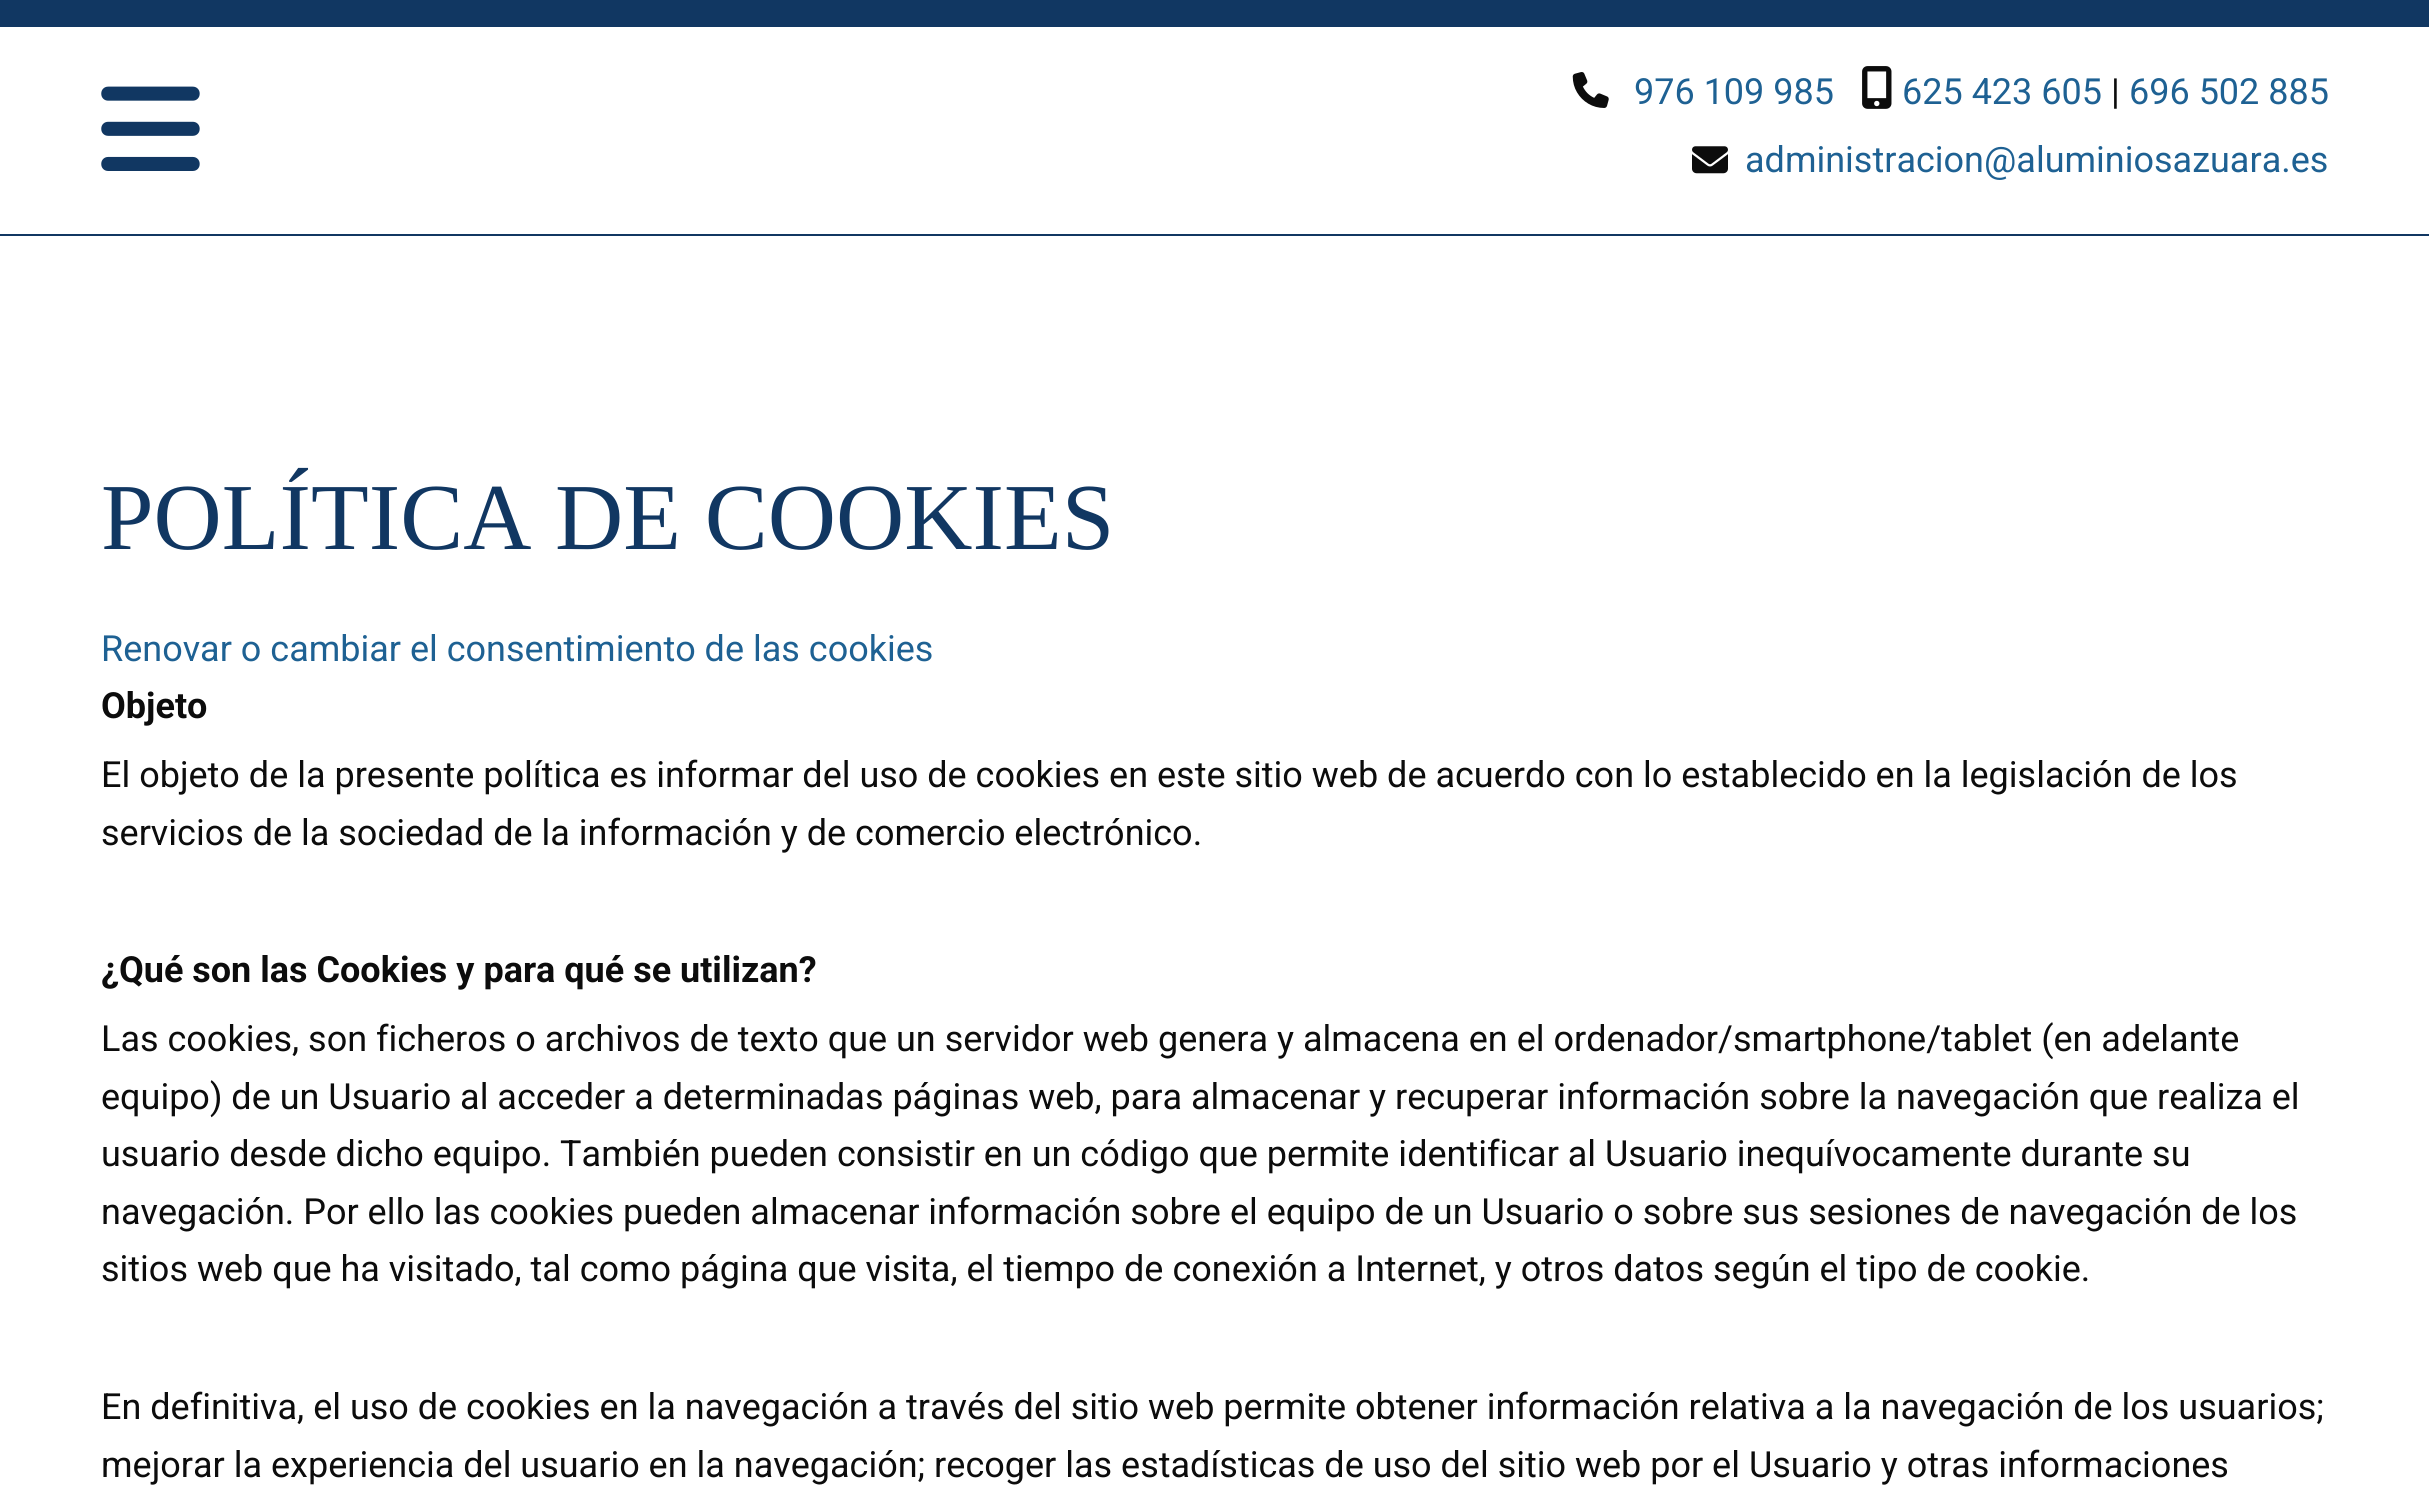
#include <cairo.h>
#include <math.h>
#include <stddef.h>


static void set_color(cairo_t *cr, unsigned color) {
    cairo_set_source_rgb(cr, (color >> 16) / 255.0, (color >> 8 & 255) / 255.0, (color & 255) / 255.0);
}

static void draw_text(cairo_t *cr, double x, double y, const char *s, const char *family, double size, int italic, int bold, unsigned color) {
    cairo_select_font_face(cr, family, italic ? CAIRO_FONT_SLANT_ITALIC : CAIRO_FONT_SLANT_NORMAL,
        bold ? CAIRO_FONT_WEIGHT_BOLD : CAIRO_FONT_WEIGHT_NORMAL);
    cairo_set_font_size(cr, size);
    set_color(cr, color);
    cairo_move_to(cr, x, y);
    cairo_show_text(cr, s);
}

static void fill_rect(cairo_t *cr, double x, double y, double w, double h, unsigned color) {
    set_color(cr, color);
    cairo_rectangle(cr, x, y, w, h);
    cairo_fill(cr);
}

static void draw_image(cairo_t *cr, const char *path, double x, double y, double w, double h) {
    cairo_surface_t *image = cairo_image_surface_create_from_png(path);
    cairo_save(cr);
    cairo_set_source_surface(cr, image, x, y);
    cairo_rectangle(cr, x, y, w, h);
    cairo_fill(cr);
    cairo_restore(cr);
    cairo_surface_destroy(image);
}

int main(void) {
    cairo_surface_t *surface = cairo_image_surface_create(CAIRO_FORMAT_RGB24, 2429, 1491);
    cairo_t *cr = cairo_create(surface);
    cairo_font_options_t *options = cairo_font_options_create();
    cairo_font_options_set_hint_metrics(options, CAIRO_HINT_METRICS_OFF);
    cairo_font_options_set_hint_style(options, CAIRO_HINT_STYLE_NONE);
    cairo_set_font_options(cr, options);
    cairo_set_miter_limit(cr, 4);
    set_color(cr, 0x113762);
    cairo_paint(cr);
    fill_rect(cr, 0, 27, 2429, 207, 0xFFFFFF);
    draw_image(cr, "assets/img1.png", 101, 86, 99, 85);
    draw_image(cr, "assets/img2.png", 1572, 72, 37, 36);
    draw_text(cr, 1634, 104, "976 109 985", "Roboto", 36, 0, 0, 0x1E6193);
    draw_image(cr, "assets/img3.png", 1862, 66, 30, 43);
    draw_text(cr, 1902, 104, "625 423 605", "Roboto", 36, 0, 0, 0x1E6193);
    draw_text(cr, 2111, 104, "|", "Roboto", 36, 0, 0, 0x0C0C0C);
    draw_text(cr, 2129, 104, "696 502 885", "Roboto", 36, 0, 0, 0x1E6193);
    draw_image(cr, "assets/img4.png", 1692, 146, 36, 28);
    draw_text(cr, 1745, 172, "administracion@aluminiosazuara.es", "Roboto", 36, 0, 0, 0x1E6193);
    fill_rect(cr, 0, 236, 2429, 1255, 0xFFFFFF);
    draw_text(cr, 101, 549, "POLÍTICA DE COOKIES", "Liberation Serif", 94.5, 0, 0, 0x113762);
    draw_text(cr, 101, 661, "Renovar o cambiar el consentimiento de las cookies", "Roboto", 36, 0, 0, 0x1E6193);
    draw_text(cr, 101, 718, "Objeto", "Roboto", 36, 0, 1, 0x0C0C0C);
    draw_text(cr, 101, 787, "El objeto de la presente política es informar del uso de cookies en este sitio web de acuerdo con lo establecido en la legislación de los", "Roboto", 36, 0, 0, 0x0C0C0C);
    draw_text(cr, 101, 845, "servicios de la sociedad de la información y de comercio electrónico.", "Roboto", 36, 0, 0, 0x0C0C0C);
    draw_text(cr, 101, 982, "¿Qué son las Cookies y para qué se utilizan?", "Roboto", 36, 0, 1, 0x0C0C0C);
    draw_text(cr, 101, 1051, "Las cookies, son ficheros o archivos de texto que un servidor web genera y almacena en el ordenador/smartphone/tablet (en adelante", "Roboto", 36, 0, 0, 0x0C0C0C);
    draw_text(cr, 101, 1109, "equipo) de un Usuario al acceder a determinadas páginas web, para almacenar y recuperar información sobre la navegación que realiza el", "Roboto", 36, 0, 0, 0x0C0C0C);
    draw_text(cr, 101, 1166, "usuario desde dicho equipo. También pueden consistir en un código que permite identificar al Usuario inequívocamente durante su", "Roboto", 36, 0, 0, 0x0C0C0C);
    draw_text(cr, 101, 1224, "navegación. Por ello las cookies pueden almacenar información sobre el equipo de un Usuario o sobre sus sesiones de navegación de los", "Roboto", 36, 0, 0, 0x0C0C0C);
    draw_text(cr, 101, 1281, "sitios web que ha visitado, tal como página que visita, el tiempo de conexión a Internet, y otros datos según el tipo de cookie.", "Roboto", 36, 0, 0, 0x0C0C0C);
    draw_text(cr, 101, 1419, "En definitiva, el uso de cookies en la navegación a través del sitio web permite obtener información relativa a la navegación de los usuarios;", "Roboto", 36, 0, 0, 0x0C0C0C);
    draw_text(cr, 101, 1477, "mejorar la experiencia del usuario en la navegación; recoger las estadísticas de uso del sitio web por el Usuario y otras informaciones", "Roboto", 36, 0, 0, 0x0C0C0C);
    cairo_surface_write_to_png(surface, "output.png");
    cairo_font_options_destroy(options);
    cairo_destroy(cr);
    cairo_surface_destroy(surface);
    return 0;
}
